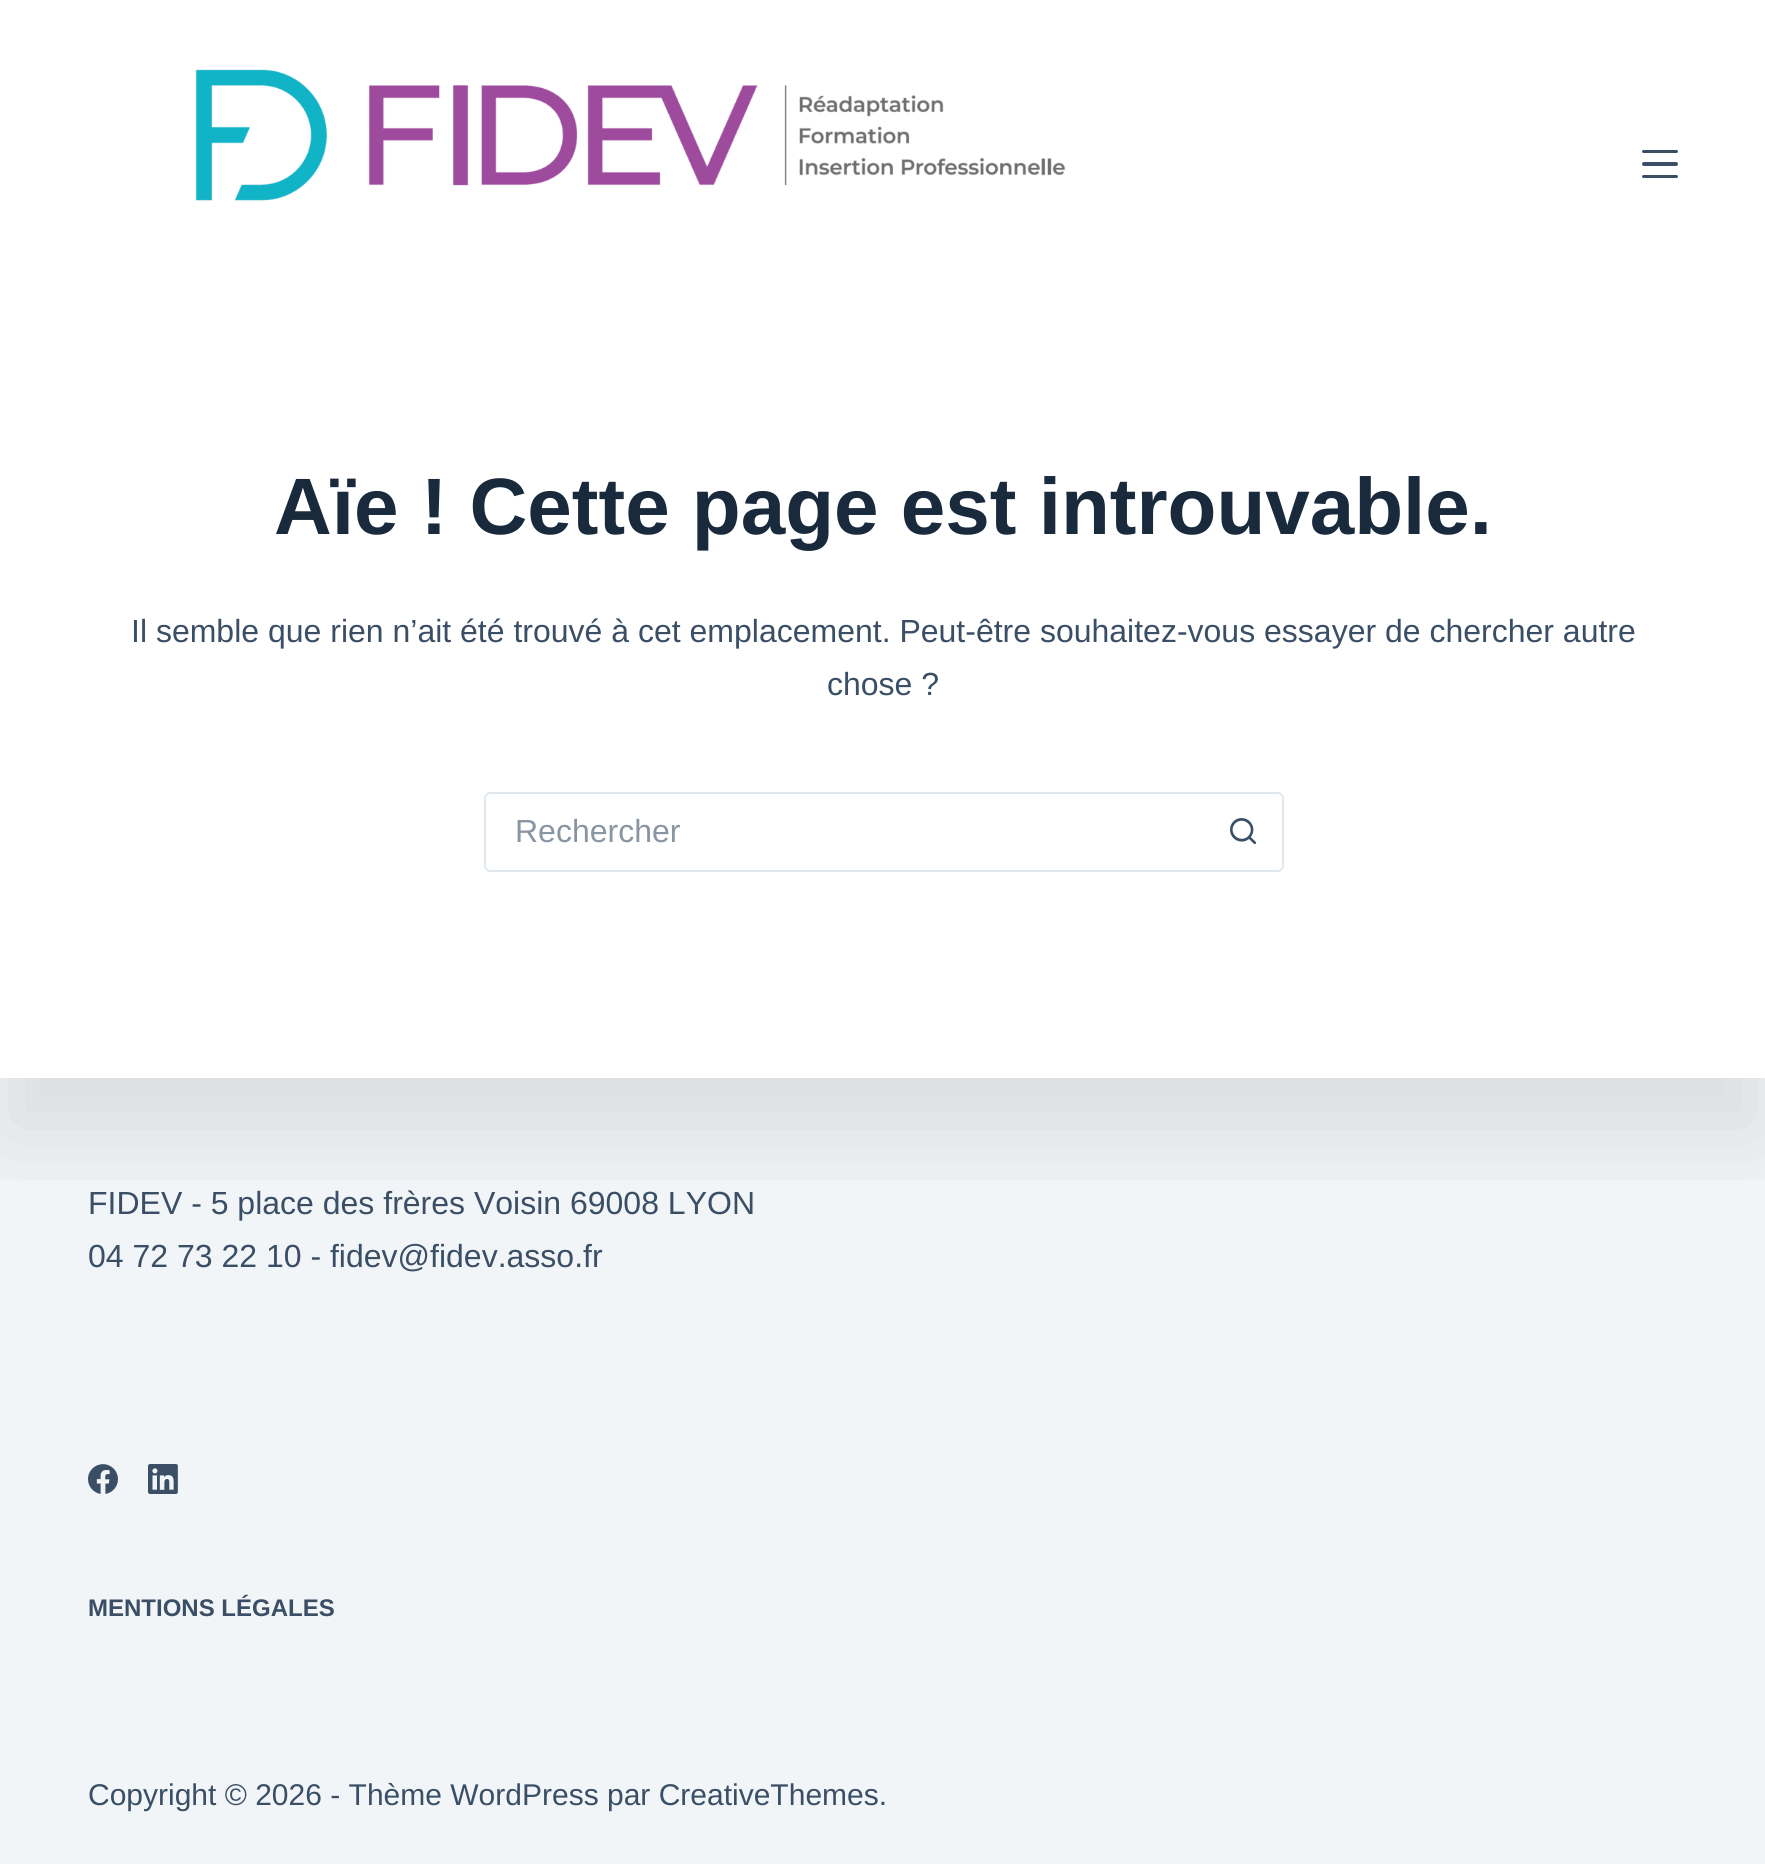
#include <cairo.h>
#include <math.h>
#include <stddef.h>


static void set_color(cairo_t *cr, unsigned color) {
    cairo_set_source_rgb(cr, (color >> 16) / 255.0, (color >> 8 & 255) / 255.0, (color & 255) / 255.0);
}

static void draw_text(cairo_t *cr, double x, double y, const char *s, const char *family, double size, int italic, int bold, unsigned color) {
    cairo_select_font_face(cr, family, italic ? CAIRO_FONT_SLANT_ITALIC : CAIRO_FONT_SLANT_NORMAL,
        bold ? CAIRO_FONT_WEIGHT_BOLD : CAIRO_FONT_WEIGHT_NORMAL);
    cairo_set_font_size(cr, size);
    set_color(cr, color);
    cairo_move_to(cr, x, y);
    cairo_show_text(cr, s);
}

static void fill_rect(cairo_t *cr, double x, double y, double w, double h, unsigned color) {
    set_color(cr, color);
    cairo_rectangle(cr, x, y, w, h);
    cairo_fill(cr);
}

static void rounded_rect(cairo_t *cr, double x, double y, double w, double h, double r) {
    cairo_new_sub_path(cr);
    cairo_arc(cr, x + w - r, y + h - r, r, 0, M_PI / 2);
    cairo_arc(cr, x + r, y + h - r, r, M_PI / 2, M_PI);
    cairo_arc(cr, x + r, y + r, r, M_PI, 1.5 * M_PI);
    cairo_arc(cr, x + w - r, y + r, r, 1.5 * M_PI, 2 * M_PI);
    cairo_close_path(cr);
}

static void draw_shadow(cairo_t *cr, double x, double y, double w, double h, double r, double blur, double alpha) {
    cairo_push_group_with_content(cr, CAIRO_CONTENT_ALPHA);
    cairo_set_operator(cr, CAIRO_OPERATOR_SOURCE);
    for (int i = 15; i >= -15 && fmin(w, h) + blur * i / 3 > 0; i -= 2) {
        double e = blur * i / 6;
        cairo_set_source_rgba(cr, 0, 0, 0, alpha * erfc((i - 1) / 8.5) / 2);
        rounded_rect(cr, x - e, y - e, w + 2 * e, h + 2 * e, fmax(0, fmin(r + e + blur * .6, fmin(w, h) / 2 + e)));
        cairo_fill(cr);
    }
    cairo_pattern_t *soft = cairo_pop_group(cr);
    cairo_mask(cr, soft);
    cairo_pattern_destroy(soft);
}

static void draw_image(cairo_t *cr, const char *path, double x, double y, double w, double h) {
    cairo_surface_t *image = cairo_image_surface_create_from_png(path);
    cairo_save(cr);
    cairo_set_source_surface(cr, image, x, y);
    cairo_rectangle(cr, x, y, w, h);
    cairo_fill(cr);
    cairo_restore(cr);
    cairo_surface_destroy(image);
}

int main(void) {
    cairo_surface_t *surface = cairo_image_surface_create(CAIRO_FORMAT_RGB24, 1765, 1864);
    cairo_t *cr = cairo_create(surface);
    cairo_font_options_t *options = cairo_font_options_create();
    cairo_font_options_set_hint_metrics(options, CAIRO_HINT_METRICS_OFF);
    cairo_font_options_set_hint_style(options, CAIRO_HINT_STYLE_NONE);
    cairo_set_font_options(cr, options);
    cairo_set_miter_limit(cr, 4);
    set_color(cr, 0xFFFFFF);
    cairo_paint(cr);
    fill_rect(cr, 0, 1078, 1765, 786, 0xF2F5F7);
    cairo_save(cr);
    cairo_rectangle(cr, 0, 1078, 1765, 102);
    cairo_clip(cr);
    set_color(cr, 0x000000);
    draw_shadow(cr, 0, 386, 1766, 752, 0, 50, 0.1);
    cairo_restore(cr);
    fill_rect(cr, 60, 322, 1646, 4, 0xFFFFFF);
    draw_image(cr, "assets/img1.png", 195, 69, 871, 132);
    set_color(cr, 0x3A4F66);
    rounded_rect(cr, 1642, 150, 36, 3, 1.5);
    cairo_fill(cr);
    rounded_rect(cr, 1642, 162, 36, 4, 2);
    cairo_fill(cr);
    rounded_rect(cr, 1642, 175, 36, 3, 1.5);
    cairo_fill(cr);
    draw_text(cr, 274, 534, "Aïe ! Cette page est introuvable.", "Liberation Sans", 80, 0, 1, 0x192A3D);
    draw_text(cr, 131, 642, "Il semble que rien n’ait été trouvé à cet emplacement. Peut-être souhaitez-vous essayer de chercher autre", "Liberation Sans", 32, 0, 0, 0x3A4F66);
    draw_text(cr, 827, 695, "chose ?", "Liberation Sans", 32, 0, 0, 0x3A4F66);
    set_color(cr, 0xE1E8ED);
    cairo_set_fill_rule(cr, CAIRO_FILL_RULE_EVEN_ODD);
    cairo_new_path(cr);
    cairo_move_to(cr, 490, 792);
    cairo_line_to(cr, 1204, 792);
    cairo_line_to(cr, 1204, 872);
    cairo_line_to(cr, 490, 872);
    cairo_curve_to(cr, 487, 872, 484, 869, 484, 866);
    cairo_line_to(cr, 484, 798);
    cairo_curve_to(cr, 484, 795, 487, 792, 490, 792);
    cairo_close_path(cr);
    cairo_move_to(cr, 490, 794);
    cairo_line_to(cr, 1204, 794);
    cairo_line_to(cr, 1204, 870);
    cairo_line_to(cr, 490, 870);
    cairo_curve_to(cr, 488, 870, 486, 868, 486, 866);
    cairo_line_to(cr, 486, 798);
    cairo_curve_to(cr, 486, 796, 488, 794, 490, 794);
    cairo_close_path(cr);
    cairo_fill(cr);
    draw_text(cr, 515, 842, "Rechercher", "Liberation Sans", 32, 0, 0, 0x8995A3);
    set_color(cr, 0xE1E8ED);
    cairo_new_path(cr);
    cairo_move_to(cr, 1204, 792);
    cairo_line_to(cr, 1278, 792);
    cairo_curve_to(cr, 1281, 792, 1284, 795, 1284, 798);
    cairo_line_to(cr, 1284, 866);
    cairo_curve_to(cr, 1284, 869, 1281, 872, 1278, 872);
    cairo_line_to(cr, 1204, 872);
    cairo_close_path(cr);
    cairo_move_to(cr, 1204, 794);
    cairo_line_to(cr, 1278, 794);
    cairo_curve_to(cr, 1280, 794, 1282, 796, 1282, 798);
    cairo_line_to(cr, 1282, 866);
    cairo_curve_to(cr, 1282, 868, 1280, 870, 1278, 870);
    cairo_line_to(cr, 1204, 870);
    cairo_close_path(cr);
    cairo_fill(cr);
    draw_image(cr, "assets/img2.png", 1230, 818, 26, 26);
    draw_text(cr, 88, 1214, "FIDEV - 5 place des frères Voisin 69008 LYON", "Liberation Sans", 32, 0, 0, 0x3A4F66);
    draw_text(cr, 88, 1267, "04 72 73 22 10 - fidev@fidev.asso.fr", "Liberation Sans", 32, 0, 0, 0x3A4F66);
    draw_image(cr, "assets/img3.png", 88, 1464, 30, 30);
    draw_image(cr, "assets/img4.png", 148, 1464, 30, 30);
    draw_text(cr, 88, 1616, "MENTIONS LÉGALES", "Liberation Sans", 24, 0, 1, 0x3A4F66);
    draw_text(cr, 88, 1805, "Copyright © 2026 - Thème WordPress par CreativeThemes.", "Liberation Sans", 30, 0, 0, 0x3A4F66);
    cairo_surface_write_to_png(surface, "output.png");
    cairo_font_options_destroy(options);
    cairo_destroy(cr);
    cairo_surface_destroy(surface);
    return 0;
}
